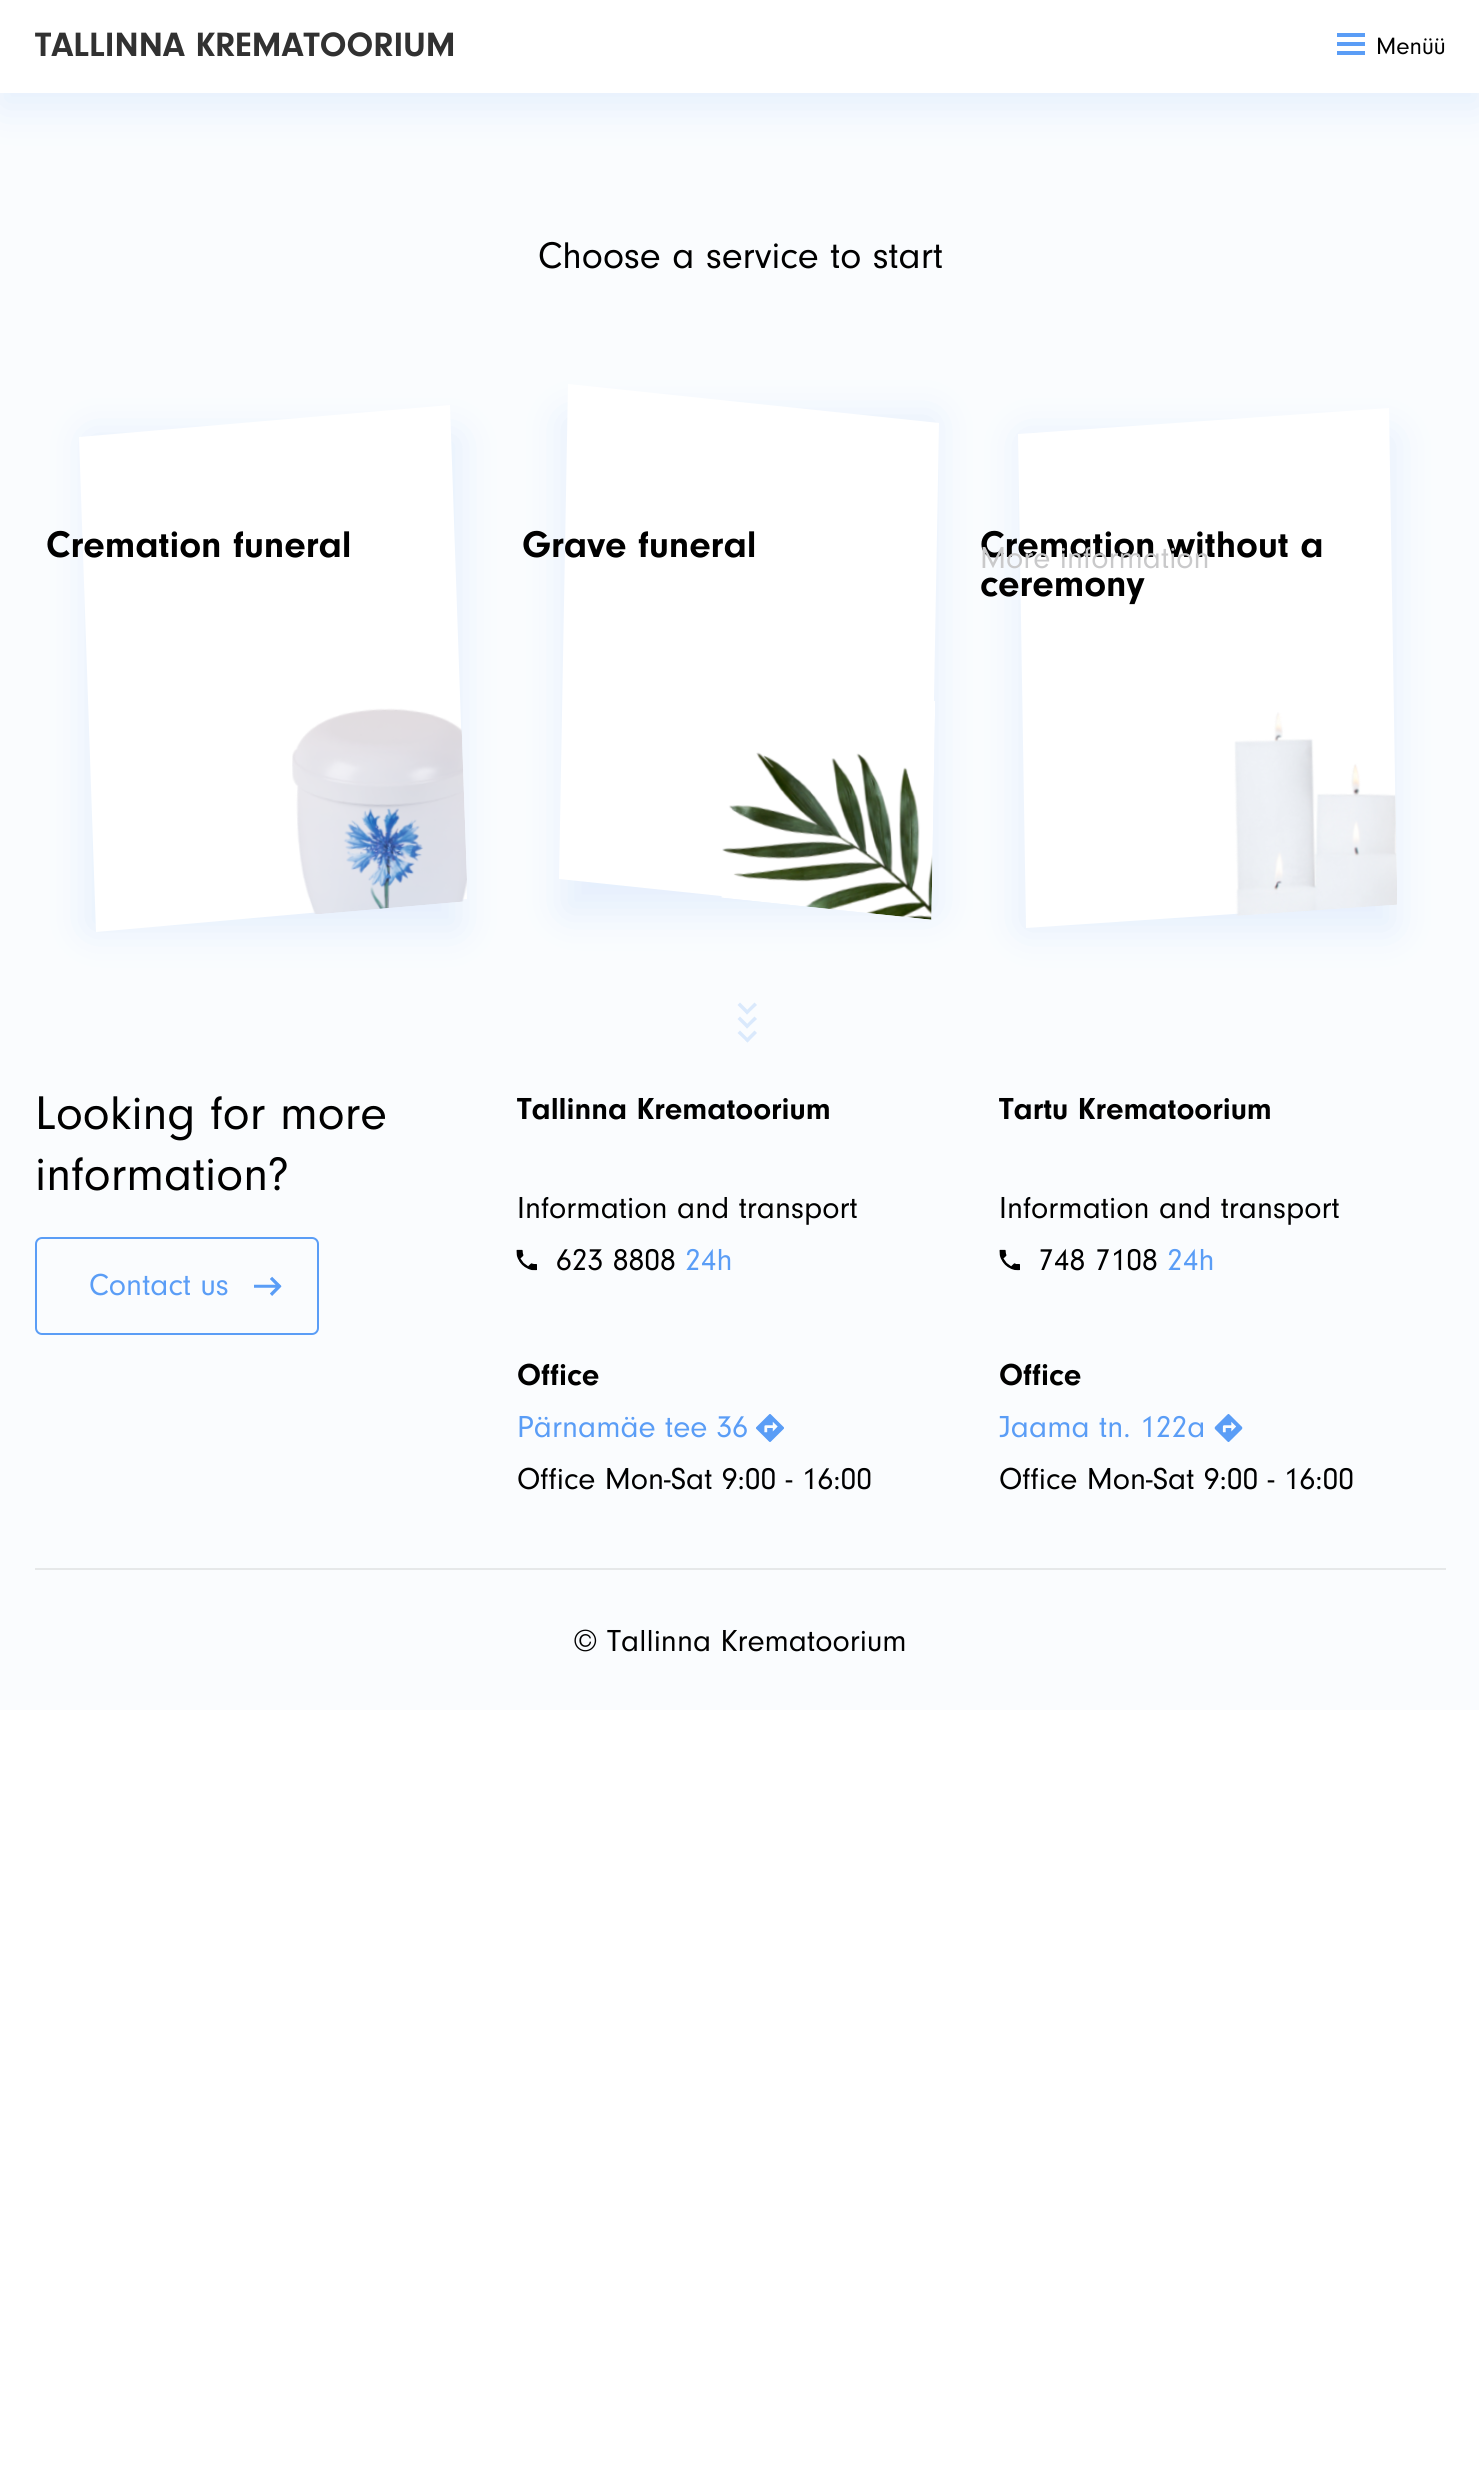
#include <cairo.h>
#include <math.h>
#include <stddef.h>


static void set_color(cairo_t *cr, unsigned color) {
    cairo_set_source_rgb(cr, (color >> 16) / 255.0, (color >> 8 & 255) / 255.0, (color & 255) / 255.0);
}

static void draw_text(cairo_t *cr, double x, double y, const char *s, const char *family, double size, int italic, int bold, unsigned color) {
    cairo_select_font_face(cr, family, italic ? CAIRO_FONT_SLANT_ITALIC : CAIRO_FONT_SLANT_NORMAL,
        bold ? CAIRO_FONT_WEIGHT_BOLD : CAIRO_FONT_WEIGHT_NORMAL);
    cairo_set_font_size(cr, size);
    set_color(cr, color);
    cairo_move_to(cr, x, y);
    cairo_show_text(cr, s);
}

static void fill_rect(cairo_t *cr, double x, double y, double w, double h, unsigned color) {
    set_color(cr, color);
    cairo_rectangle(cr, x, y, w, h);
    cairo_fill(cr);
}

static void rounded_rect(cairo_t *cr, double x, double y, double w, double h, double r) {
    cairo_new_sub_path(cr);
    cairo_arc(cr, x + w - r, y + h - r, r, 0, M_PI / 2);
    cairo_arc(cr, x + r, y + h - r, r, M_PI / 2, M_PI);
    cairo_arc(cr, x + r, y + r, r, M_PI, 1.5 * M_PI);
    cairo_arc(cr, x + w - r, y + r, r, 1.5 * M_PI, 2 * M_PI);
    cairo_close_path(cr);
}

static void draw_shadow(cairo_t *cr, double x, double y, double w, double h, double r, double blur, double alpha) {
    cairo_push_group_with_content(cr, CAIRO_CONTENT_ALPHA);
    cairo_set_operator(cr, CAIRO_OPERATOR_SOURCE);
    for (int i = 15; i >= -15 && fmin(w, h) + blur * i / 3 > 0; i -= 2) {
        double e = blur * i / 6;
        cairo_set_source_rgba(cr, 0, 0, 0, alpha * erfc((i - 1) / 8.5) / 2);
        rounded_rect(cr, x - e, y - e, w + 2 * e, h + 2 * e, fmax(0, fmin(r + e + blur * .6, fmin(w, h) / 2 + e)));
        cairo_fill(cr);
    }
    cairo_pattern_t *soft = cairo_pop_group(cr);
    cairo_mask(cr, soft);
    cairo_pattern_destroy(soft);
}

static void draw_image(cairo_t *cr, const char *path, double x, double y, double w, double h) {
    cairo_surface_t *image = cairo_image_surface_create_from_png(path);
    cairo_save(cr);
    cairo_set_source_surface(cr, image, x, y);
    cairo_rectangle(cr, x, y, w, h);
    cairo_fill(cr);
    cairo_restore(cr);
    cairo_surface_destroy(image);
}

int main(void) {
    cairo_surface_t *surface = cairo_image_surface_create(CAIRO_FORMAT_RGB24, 1479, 2482);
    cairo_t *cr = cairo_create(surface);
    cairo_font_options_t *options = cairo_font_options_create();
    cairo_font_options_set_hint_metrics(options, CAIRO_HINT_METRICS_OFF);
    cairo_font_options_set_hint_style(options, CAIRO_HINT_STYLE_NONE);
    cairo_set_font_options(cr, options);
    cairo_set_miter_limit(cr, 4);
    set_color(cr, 0xFFFFFF);
    cairo_paint(cr);
    fill_rect(cr, 0, 93, 1479, 1617, 0xFAFCFE);
    set_color(cr, 0x5A9DF6);
    draw_shadow(cr, 0, 14, 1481, 93, 0, 21, 0.14);
    fill_rect(cr, 0, 0, 1479, 93, 0xFFFFFF);
    draw_text(cr, 35, 56, "TALLINNA KREMATOORIUM", "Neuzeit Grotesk", 35, 0, 1, 0x313131);
    fill_rect(cr, 1337, 42, 28, 4, 0x5A9DF6);
    fill_rect(cr, 1337, 33, 28, 4, 0x5A9DF6);
    fill_rect(cr, 1337, 51, 28, 4, 0x5A9DF6);
    draw_text(cr, 1376, 54, "Menüü", "Neuzeit Grotesk", 24.5, 0, 0, 0x000000);
    draw_text(cr, 538, 268, "Choose a service to start", "Neuzeit Grotesk", 38.5, 0, 0, 0x000000);
    set_color(cr, 0x5A9DF6);
    draw_shadow(cr, 88, 436, 371, 493, 0, 21, 0.14);
    set_color(cr, 0xFFFFFF);
    cairo_new_path(cr);
    cairo_move_to(cr, 79, 437);
    cairo_line_to(cr, 450, 405);
    cairo_line_to(cr, 467, 899);
    cairo_line_to(cr, 96, 932);
    cairo_close_path(cr);
    cairo_fill(cr);
    draw_image(cr, "assets/img1.png", 292, 708, 175, 206);
    draw_text(cr, 46, 557, "Cremation funeral", "Neuzeit Grotesk", 38.5, 0, 1, 0x000000);
    set_color(cr, 0x5A9DF6);
    draw_shadow(cr, 564, 418, 371, 494, 0, 21, 0.14);
    set_color(cr, 0xFFFFFF);
    cairo_new_path(cr);
    cairo_move_to(cr, 568, 384);
    cairo_line_to(cr, 939, 423);
    cairo_line_to(cr, 930, 918);
    cairo_line_to(cr, 559, 879);
    cairo_close_path(cr);
    cairo_fill(cr);
    draw_image(cr, "assets/img2.png", 721, 701, 214, 219);
    draw_text(cr, 522, 557, "Grave funeral", "Neuzeit Grotesk", 38.5, 0, 1, 0x000000);
    set_color(cr, 0x5A9DF6);
    draw_shadow(cr, 1022, 436, 371, 493, 0, 21, 0.14);
    set_color(cr, 0xFFFFFF);
    cairo_new_path(cr);
    cairo_move_to(cr, 1018, 434);
    cairo_line_to(cr, 1389, 408);
    cairo_line_to(cr, 1397, 903);
    cairo_line_to(cr, 1026, 928);
    cairo_close_path(cr);
    cairo_fill(cr);
    draw_image(cr, "assets/img3.png", 1234, 712, 163, 204);
    draw_text(cr, 980, 557, "Cremation without a", "Neuzeit Grotesk", 38.5, 0, 1, 0x000000);
    draw_text(cr, 980, 596, "ceremony", "Neuzeit Grotesk", 38.5, 0, 1, 0x000000);
    draw_text(cr, 980, 568, "More information", "Neuzeit Grotesk", 31.5, 0, 0, 0xC9C9CA);
    set_color(cr, 0xDAE9FC);
    cairo_new_path(cr);
    cairo_move_to(cr, 754.5, 1002.5);
    cairo_line_to(cr, 757, 1005);
    cairo_line_to(cr, 747, 1014.5);
    cairo_line_to(cr, 745, 1012);
    cairo_close_path(cr);
    cairo_fill(cr);
    cairo_new_path(cr);
    cairo_move_to(cr, 740, 1002.5);
    cairo_line_to(cr, 749.5, 1012);
    cairo_line_to(cr, 747, 1014.5);
    cairo_line_to(cr, 737.5, 1005);
    cairo_close_path(cr);
    cairo_move_to(cr, 754.5, 1016.5);
    cairo_line_to(cr, 757, 1019);
    cairo_line_to(cr, 747, 1028.5);
    cairo_line_to(cr, 745, 1026);
    cairo_close_path(cr);
    cairo_fill(cr);
    cairo_new_path(cr);
    cairo_move_to(cr, 740, 1016.5);
    cairo_line_to(cr, 749.5, 1026);
    cairo_line_to(cr, 747, 1028.5);
    cairo_line_to(cr, 737.5, 1019);
    cairo_close_path(cr);
    cairo_move_to(cr, 754.5, 1030.5);
    cairo_line_to(cr, 757, 1033);
    cairo_line_to(cr, 747.5, 1042.5);
    cairo_line_to(cr, 745, 1040);
    cairo_close_path(cr);
    cairo_fill(cr);
    cairo_new_path(cr);
    cairo_move_to(cr, 740, 1030.5);
    cairo_line_to(cr, 749.5, 1040);
    cairo_line_to(cr, 747.5, 1042.5);
    cairo_line_to(cr, 737.5, 1033);
    cairo_close_path(cr);
    cairo_fill(cr);
    draw_text(cr, 35, 1129, "Looking for more", "Neuzeit Grotesk", 49, 0, 0, 0x000000);
    draw_text(cr, 35, 1190, "information?", "Neuzeit Grotesk", 49, 0, 0, 0x000000);
    rounded_rect(cr, 36, 1238, 282, 96, 6);
    set_color(cr, 0x5A9DF6);
    cairo_stroke(cr);
    draw_text(cr, 89, 1295, "Contact us", "Neuzeit Grotesk", 31.5, 0, 0, 0x5A9DF6);
    draw_image(cr, "assets/img4.png", 254, 1276, 28, 20);
    draw_text(cr, 517, 1119, "Tallinna Krematoorium", "Neuzeit Grotesk", 31.5, 0, 1, 0x000000);
    draw_text(cr, 517, 1218, "Information and transport", "Neuzeit Grotesk", 31.5, 0, 0, 0x000000);
    draw_image(cr, "assets/img5.png", 516, 1249, 21, 22);
    draw_text(cr, 556, 1270, "623 8808", "Neuzeit Grotesk", 31.5, 0, 0, 0x000000);
    draw_text(cr, 685, 1270, "24h", "Neuzeit Grotesk", 31.5, 0, 0, 0x5A9DF6);
    draw_text(cr, 517, 1385, "Office", "Neuzeit Grotesk", 31.5, 0, 1, 0x000000);
    draw_text(cr, 517, 1437, "Pärnamäe tee 36", "Neuzeit Grotesk", 31.5, 0, 0, 0x5A9DF6);
    draw_image(cr, "assets/img6.png", 756, 1414, 28, 28);
    draw_text(cr, 517, 1489, "Office Mon-Sat 9:00 - 16:00", "Neuzeit Grotesk", 31.5, 0, 0, 0x000000);
    draw_text(cr, 999, 1119, "Tartu Krematoorium", "Neuzeit Grotesk", 31.5, 0, 1, 0x000000);
    draw_text(cr, 999, 1218, "Information and transport", "Neuzeit Grotesk", 31.5, 0, 0, 0x000000);
    draw_image(cr, "assets/img7.png", 999, 1249, 21, 22);
    draw_text(cr, 1038, 1270, "748 7108", "Neuzeit Grotesk", 31.5, 0, 0, 0x000000);
    draw_text(cr, 1167, 1270, "24h", "Neuzeit Grotesk", 31.5, 0, 0, 0x5A9DF6);
    draw_text(cr, 999, 1385, "Office", "Neuzeit Grotesk", 31.5, 0, 1, 0x000000);
    draw_text(cr, 999, 1437, "Jaama tn. 122a", "Neuzeit Grotesk", 31.5, 0, 0, 0x5A9DF6);
    draw_image(cr, "assets/img8.png", 1214, 1414, 29, 28);
    draw_text(cr, 999, 1489, "Office Mon-Sat 9:00 - 16:00", "Neuzeit Grotesk", 31.5, 0, 0, 0x000000);
    fill_rect(cr, 35, 1568, 1411, 2, 0xE6E8E9);
    draw_text(cr, 573, 1651, "© Tallinna Krematoorium", "Neuzeit Grotesk", 31.5, 0, 0, 0x000000);
    cairo_surface_write_to_png(surface, "output.png");
    cairo_font_options_destroy(options);
    cairo_destroy(cr);
    cairo_surface_destroy(surface);
    return 0;
}
